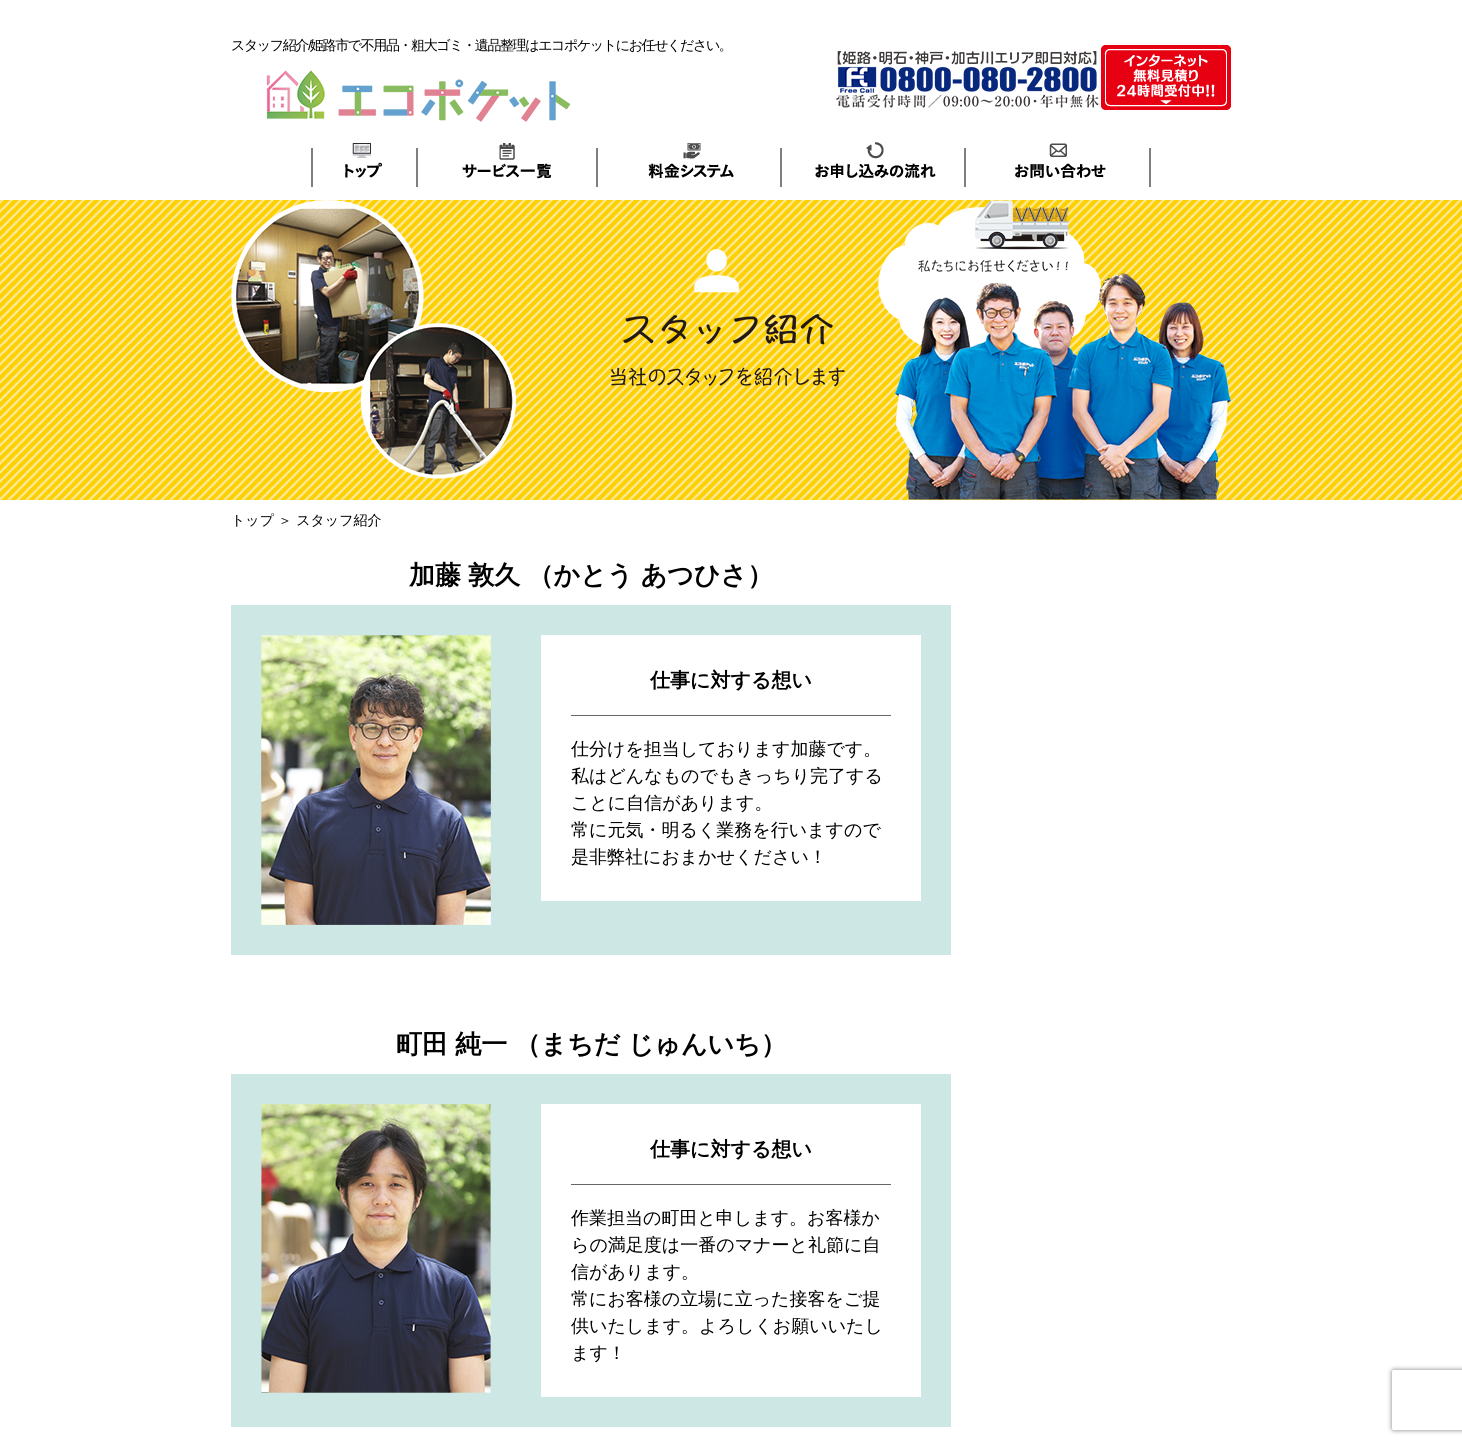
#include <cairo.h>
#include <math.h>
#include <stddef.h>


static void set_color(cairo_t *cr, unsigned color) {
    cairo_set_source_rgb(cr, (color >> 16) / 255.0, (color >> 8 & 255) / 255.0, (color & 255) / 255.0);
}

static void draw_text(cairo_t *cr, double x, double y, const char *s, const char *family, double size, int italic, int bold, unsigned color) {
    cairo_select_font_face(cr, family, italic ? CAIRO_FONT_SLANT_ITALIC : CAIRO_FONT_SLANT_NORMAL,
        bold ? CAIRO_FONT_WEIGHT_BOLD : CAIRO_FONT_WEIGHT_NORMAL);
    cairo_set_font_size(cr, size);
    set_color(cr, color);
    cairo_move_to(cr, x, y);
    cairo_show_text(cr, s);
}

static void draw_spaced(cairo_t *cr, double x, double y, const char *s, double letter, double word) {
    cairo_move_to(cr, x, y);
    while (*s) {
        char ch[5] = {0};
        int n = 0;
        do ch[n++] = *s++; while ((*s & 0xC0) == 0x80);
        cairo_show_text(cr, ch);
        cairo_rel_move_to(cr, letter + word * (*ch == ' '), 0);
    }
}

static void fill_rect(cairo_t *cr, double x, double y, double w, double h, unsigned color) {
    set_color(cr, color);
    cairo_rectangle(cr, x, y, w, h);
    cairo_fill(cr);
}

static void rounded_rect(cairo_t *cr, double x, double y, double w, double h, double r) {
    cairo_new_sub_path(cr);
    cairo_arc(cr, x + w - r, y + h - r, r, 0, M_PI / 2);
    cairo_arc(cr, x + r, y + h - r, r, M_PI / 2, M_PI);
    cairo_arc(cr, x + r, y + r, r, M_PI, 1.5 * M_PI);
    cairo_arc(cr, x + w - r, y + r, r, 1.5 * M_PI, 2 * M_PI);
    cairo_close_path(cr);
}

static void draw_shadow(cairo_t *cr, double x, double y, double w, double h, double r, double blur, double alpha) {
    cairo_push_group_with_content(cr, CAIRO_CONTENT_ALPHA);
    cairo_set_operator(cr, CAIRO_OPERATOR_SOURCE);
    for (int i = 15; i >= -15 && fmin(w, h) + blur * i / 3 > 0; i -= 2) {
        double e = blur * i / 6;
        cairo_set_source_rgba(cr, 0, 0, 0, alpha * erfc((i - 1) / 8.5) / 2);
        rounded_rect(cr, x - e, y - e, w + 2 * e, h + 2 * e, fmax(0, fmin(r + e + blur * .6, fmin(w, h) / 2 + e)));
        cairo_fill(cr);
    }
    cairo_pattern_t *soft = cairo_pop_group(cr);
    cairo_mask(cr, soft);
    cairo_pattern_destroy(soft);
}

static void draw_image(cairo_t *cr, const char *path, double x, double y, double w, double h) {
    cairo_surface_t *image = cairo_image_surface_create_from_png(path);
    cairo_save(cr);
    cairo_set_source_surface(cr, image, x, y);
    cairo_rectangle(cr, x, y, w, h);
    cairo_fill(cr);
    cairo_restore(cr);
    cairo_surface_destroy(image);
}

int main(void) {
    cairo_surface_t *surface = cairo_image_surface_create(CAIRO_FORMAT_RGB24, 1462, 1444);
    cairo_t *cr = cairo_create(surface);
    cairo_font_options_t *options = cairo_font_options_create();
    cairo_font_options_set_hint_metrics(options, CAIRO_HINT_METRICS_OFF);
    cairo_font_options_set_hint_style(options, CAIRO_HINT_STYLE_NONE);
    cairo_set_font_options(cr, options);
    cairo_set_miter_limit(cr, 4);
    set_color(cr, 0xFFFFFF);
    cairo_paint(cr);
    cairo_select_font_face(cr, "WenQuanYi Zen Hei Medium", CAIRO_FONT_SLANT_NORMAL, CAIRO_FONT_WEIGHT_NORMAL);
    cairo_set_font_size(cr, 14);
    set_color(cr, 0x000000);
    draw_spaced(cr, 231, 50, "スタッフ紹介", -1.4, 0);
    cairo_select_font_face(cr, "Liberation Sans", CAIRO_FONT_SLANT_NORMAL, CAIRO_FONT_WEIGHT_NORMAL);
    draw_spaced(cr, 308, 50, "/", -1.4, 0);
    cairo_select_font_face(cr, "WenQuanYi Zen Hei Medium", CAIRO_FONT_SLANT_NORMAL, CAIRO_FONT_WEIGHT_NORMAL);
    draw_spaced(cr, 310, 50, "姫路市で不用品・粗大ゴミ・遺品整理はエコポケットにお任せください。", -1.4, 0);
    draw_image(cr, "assets/img1.png", 266, 70, 304, 52);
    draw_image(cr, "assets/img2.png", 836, 51, 264, 57);
    draw_image(cr, "assets/img3.png", 1101, 45, 130, 65);
    draw_image(cr, "assets/img4.png", 311, 143, 71, 44);
    draw_image(cr, "assets/img5.png", 416, 143, 182, 44);
    draw_image(cr, "assets/img6.png", 648, 143, 134, 44);
    draw_image(cr, "assets/img7.png", 815, 142, 151, 45);
    draw_image(cr, "assets/img8.png", 1015, 143, 136, 44);
    draw_image(cr, "assets/img9.png", 0, 200, 1462, 300);
    draw_image(cr, "assets/img10.png", 231, 200, 1000, 300);
    draw_text(cr, 231, 525, "トップ", "WenQuanYi Zen Hei Medium", 14, 0, 0, 0x000000);
    draw_text(cr, 278, 525, "＞ スタッフ紹介", "WenQuanYi Zen Hei Medium", 14, 0, 0, 0x000000);
    cairo_select_font_face(cr, "WenQuanYi Zen Hei", CAIRO_FONT_SLANT_NORMAL, CAIRO_FONT_WEIGHT_BOLD);
    cairo_set_font_size(cr, 26);
    draw_spaced(cr, 409, 584, "加藤 敦久 （かとう あつひさ）", 0, -0.5);
    fill_rect(cr, 231, 605, 720, 350, 0xCCE7E4);
    draw_image(cr, "assets/img11.png", 261, 635, 230, 290);
    fill_rect(cr, 541, 635, 380, 266, 0xFFFFFF);
    fill_rect(cr, 571, 715, 320, 1, 0x666666);
    draw_text(cr, 650, 687, "仕事に対する想い", "WenQuanYi Zen Hei", 20, 0, 1, 0x000000);
    draw_text(cr, 571, 755, "仕分けを担当しております加藤です。", "WenQuanYi Zen Hei Medium", 18, 0, 0, 0x000000);
    draw_text(cr, 571, 782, "私はどんなものでもきっちり完了する", "WenQuanYi Zen Hei Medium", 18, 0, 0, 0x000000);
    draw_text(cr, 571, 809, "ことに自信があります。", "WenQuanYi Zen Hei Medium", 18, 0, 0, 0x000000);
    draw_text(cr, 571, 836, "常に元気・明るく業務を行いますので", "WenQuanYi Zen Hei Medium", 18, 0, 0, 0x000000);
    draw_text(cr, 571, 863, "是非弊社におまかせください！", "WenQuanYi Zen Hei Medium", 18, 0, 0, 0x000000);
    cairo_select_font_face(cr, "WenQuanYi Zen Hei", CAIRO_FONT_SLANT_NORMAL, CAIRO_FONT_WEIGHT_BOLD);
    cairo_set_font_size(cr, 26);
    draw_spaced(cr, 396, 1053, "町田 純一 （まちだ じゅんいち）", 0, -0.5);
    fill_rect(cr, 231, 1074, 720, 353, 0xCCE7E4);
    draw_image(cr, "assets/img12.png", 261, 1104, 230, 289);
    fill_rect(cr, 541, 1104, 380, 293, 0xFFFFFF);
    fill_rect(cr, 571, 1184, 320, 1, 0x666666);
    draw_text(cr, 650, 1156, "仕事に対する想い", "WenQuanYi Zen Hei", 20, 0, 1, 0x000000);
    draw_text(cr, 571, 1224, "作業担当の町田と申します。お客様か", "WenQuanYi Zen Hei Medium", 18, 0, 0, 0x000000);
    draw_text(cr, 571, 1251, "らの満足度は一番のマナーと礼節に自", "WenQuanYi Zen Hei Medium", 18, 0, 0, 0x000000);
    draw_text(cr, 571, 1278, "信があります。", "WenQuanYi Zen Hei Medium", 18, 0, 0, 0x000000);
    draw_text(cr, 571, 1305, "常にお客様の立場に立った接客をご提", "WenQuanYi Zen Hei Medium", 18, 0, 0, 0x000000);
    draw_text(cr, 571, 1332, "供いたします。よろしくお願いいたし", "WenQuanYi Zen Hei Medium", 18, 0, 0, 0x000000);
    draw_text(cr, 571, 1359, "ます！", "WenQuanYi Zen Hei Medium", 18, 0, 0, 0x000000);
    cairo_save(cr);
    cairo_set_fill_rule(cr, CAIRO_FILL_RULE_EVEN_ODD);
    cairo_new_path(cr);
    cairo_move_to(cr, 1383, 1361);
    cairo_line_to(cr, 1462, 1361);
    cairo_line_to(cr, 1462, 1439);
    cairo_line_to(cr, 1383, 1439);
    cairo_close_path(cr);
    cairo_move_to(cr, 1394, 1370);
    cairo_line_to(cr, 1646, 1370);
    cairo_curve_to(cr, 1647, 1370, 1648, 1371, 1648, 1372);
    cairo_line_to(cr, 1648, 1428);
    cairo_curve_to(cr, 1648, 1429, 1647, 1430, 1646, 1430);
    cairo_line_to(cr, 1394, 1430);
    cairo_curve_to(cr, 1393, 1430, 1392, 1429, 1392, 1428);
    cairo_line_to(cr, 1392, 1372);
    cairo_curve_to(cr, 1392, 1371, 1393, 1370, 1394, 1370);
    cairo_close_path(cr);
    cairo_clip(cr);
    set_color(cr, 0x808080);
    draw_shadow(cr, 1392, 1370, 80, 60, 2, 2.5, 1);
    cairo_restore(cr);
    cairo_surface_write_to_png(surface, "output.png");
    cairo_font_options_destroy(options);
    cairo_destroy(cr);
    cairo_surface_destroy(surface);
    return 0;
}
